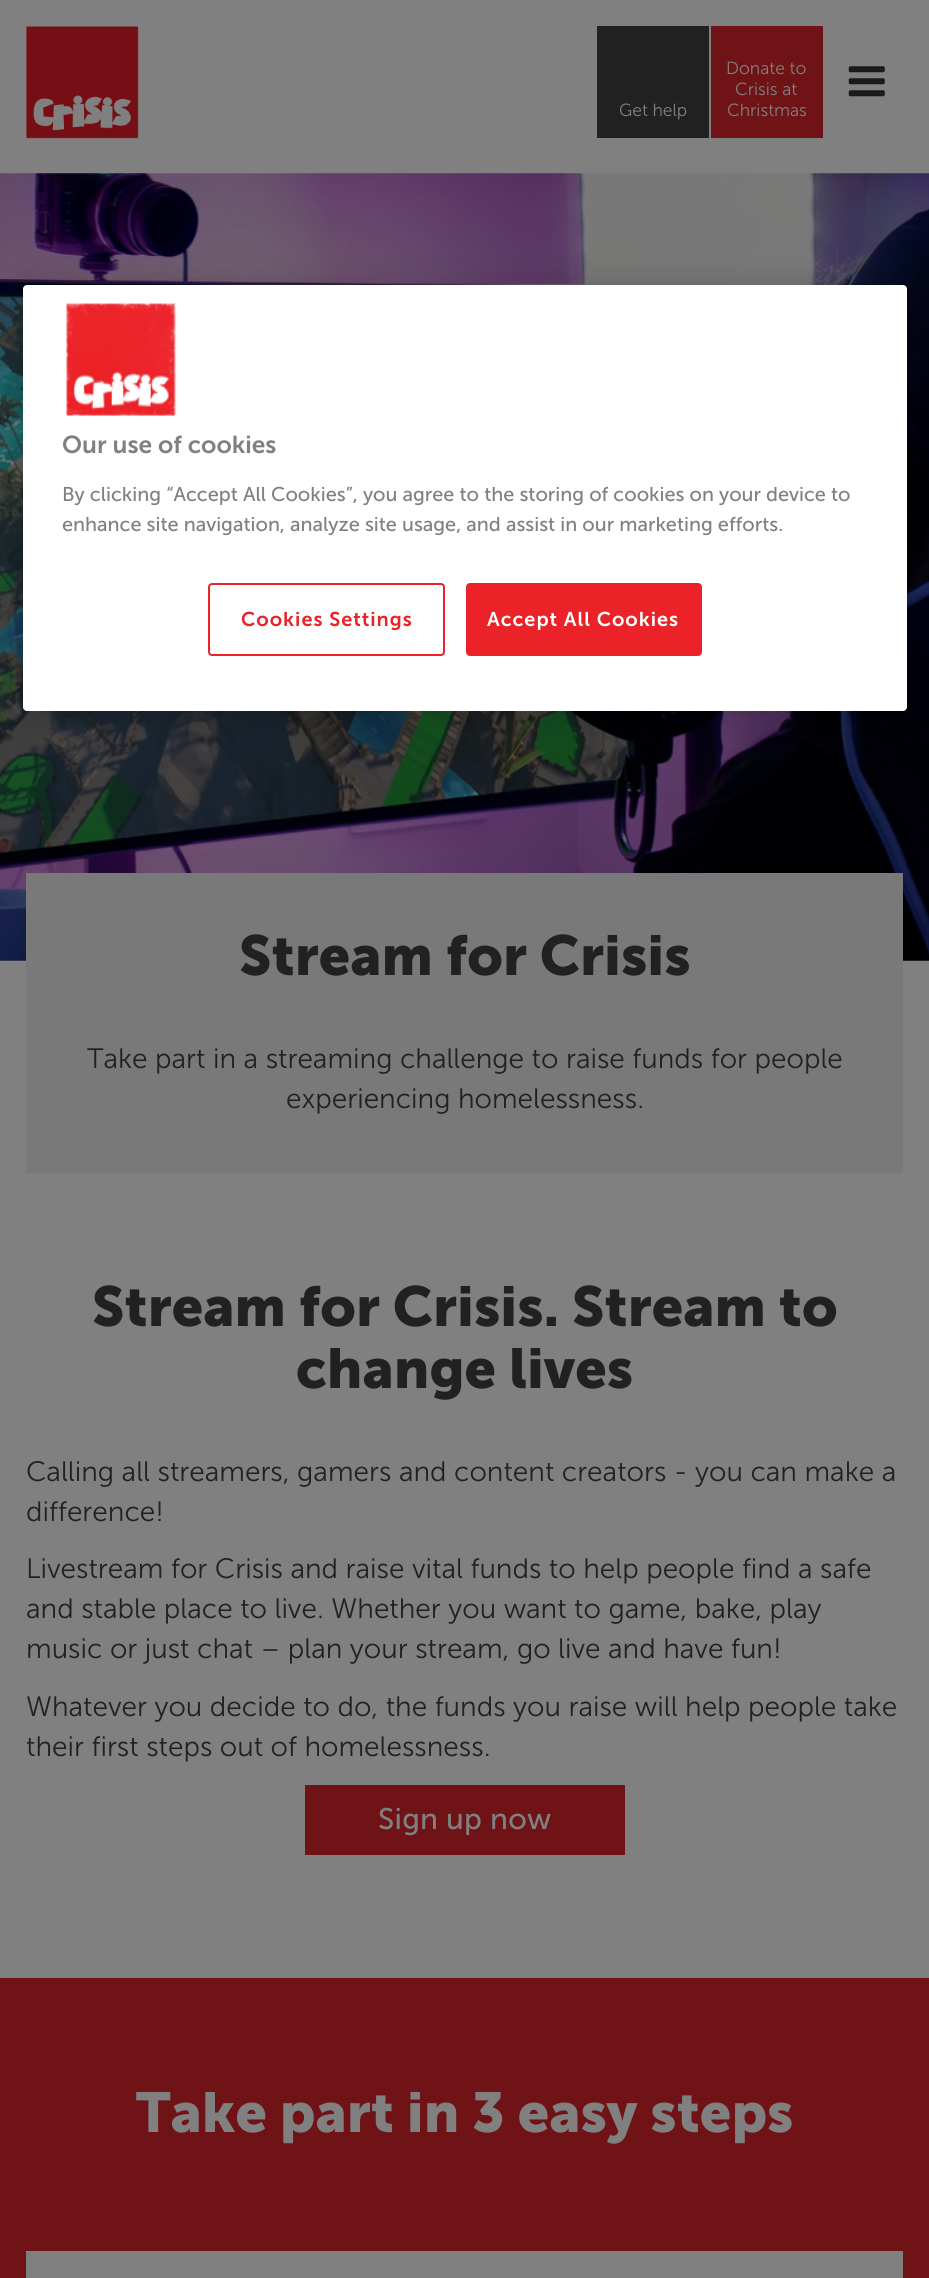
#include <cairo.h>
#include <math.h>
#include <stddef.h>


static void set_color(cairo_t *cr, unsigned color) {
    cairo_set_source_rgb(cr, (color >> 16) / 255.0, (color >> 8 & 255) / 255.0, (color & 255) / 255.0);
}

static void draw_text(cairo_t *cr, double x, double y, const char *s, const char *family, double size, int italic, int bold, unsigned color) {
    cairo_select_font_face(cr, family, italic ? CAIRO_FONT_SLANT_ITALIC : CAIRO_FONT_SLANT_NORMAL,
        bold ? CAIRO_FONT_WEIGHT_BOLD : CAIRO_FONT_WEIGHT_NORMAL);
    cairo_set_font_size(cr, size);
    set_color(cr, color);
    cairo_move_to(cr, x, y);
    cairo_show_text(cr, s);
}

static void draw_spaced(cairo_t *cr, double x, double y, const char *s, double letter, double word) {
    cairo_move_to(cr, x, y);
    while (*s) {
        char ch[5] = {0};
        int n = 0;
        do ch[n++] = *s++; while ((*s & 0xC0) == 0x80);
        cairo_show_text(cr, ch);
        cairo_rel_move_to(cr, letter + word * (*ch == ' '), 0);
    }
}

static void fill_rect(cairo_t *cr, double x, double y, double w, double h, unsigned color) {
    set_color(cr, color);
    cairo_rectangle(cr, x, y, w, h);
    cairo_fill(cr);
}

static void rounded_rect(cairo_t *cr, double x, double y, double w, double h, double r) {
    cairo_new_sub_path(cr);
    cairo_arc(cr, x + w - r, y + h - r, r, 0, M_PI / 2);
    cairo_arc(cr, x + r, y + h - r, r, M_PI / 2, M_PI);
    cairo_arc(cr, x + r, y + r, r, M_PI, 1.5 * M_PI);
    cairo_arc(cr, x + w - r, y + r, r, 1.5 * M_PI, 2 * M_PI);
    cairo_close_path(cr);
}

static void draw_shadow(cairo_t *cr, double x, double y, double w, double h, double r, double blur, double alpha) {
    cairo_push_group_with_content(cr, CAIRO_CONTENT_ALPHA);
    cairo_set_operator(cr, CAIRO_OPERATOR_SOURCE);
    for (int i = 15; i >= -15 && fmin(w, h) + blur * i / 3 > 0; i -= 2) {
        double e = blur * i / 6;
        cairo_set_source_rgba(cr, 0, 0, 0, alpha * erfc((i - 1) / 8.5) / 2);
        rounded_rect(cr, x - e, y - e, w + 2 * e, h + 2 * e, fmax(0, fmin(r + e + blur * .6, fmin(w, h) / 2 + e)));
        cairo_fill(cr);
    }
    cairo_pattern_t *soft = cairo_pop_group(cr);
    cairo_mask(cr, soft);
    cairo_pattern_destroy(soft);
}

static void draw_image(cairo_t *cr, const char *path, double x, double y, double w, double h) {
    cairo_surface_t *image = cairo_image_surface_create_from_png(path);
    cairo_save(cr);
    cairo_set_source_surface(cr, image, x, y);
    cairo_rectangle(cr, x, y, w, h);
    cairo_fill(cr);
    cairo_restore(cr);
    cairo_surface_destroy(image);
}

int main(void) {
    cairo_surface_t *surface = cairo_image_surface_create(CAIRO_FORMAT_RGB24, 929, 2278);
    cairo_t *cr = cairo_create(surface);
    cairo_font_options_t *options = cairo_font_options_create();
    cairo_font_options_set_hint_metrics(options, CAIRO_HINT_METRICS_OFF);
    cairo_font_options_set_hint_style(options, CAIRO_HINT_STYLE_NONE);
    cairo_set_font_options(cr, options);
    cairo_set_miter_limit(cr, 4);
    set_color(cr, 0x808080);
    cairo_paint(cr);
    draw_image(cr, "assets/img1.png", 26, 26, 113, 113);
    fill_rect(cr, 597, 26, 112, 112, 0x212122);
    draw_text(cr, 619, 116, "Get help", "Museo Sans Light", 17.5, 0, 0, 0x808080);
    fill_rect(cr, 711, 26, 112, 112, 0x6F1316);
    draw_text(cr, 726, 74, "Donate to", "Museo Sans Light", 17.5, 0, 0, 0x808080);
    draw_text(cr, 735, 95, "Crisis at", "Museo Sans Light", 17.5, 0, 0, 0x808080);
    draw_text(cr, 727, 116, "Christmas", "Museo Sans Light", 17.5, 0, 0, 0x808080);
    draw_image(cr, "assets/img2.png", 848, 66, 37, 31);
    draw_image(cr, "assets/img4.png", 0, 173, 929, 788);
    set_color(cr, 0x000000);
    draw_shadow(cr, 23, 285, 884, 426, 4, 16, 0.2);
    set_color(cr, 0xFFFFFF);
    rounded_rect(cr, 23, 285, 884, 426, 4);
    cairo_fill(cr);
    draw_image(cr, "assets/img3.png", 66, 303, 111, 113);
    draw_text(cr, 62, 453, "Our use of cookies", "Museo Sans SemiBold", 24.5, 0, 0, 0x808080);
    draw_text(cr, 62, 501, "By clicking “Accept All Cookies”, you agree to the storing of cookies on your device to", "Museo Sans", 19.9, 0, 0, 0x808080);
    draw_text(cr, 62, 531, "enhance site navigation, analyze site usage, and assist in our marketing efforts.", "Museo Sans", 19.9, 0, 0, 0x808080);
    rounded_rect(cr, 209, 584, 235, 71, 3);
    set_color(cr, 0xEB2227);
    cairo_stroke(cr);
    cairo_select_font_face(cr, "Museo Sans SemiBold", CAIRO_FONT_SLANT_NORMAL, CAIRO_FONT_WEIGHT_NORMAL);
    draw_spaced(cr, 241, 626, "Cookies Settings", 1, 0);
    rounded_rect(cr, 467, 584, 234, 71, 3);
    cairo_fill_preserve(cr);
    cairo_stroke(cr);
    set_color(cr, 0xFFFFFF);
    draw_spaced(cr, 487, 626, "Accept All Cookies", 1, 0);
    fill_rect(cr, 26, 873, 877, 300, 0x797979);
    draw_text(cr, 239, 975, "Stream for Crisis", "Museo Sans", 56, 0, 1, 0x212122);
    draw_text(cr, 87, 1068, "Take part in a streaming challenge to raise funds for people", "Museo Sans Light", 28, 0, 0, 0x212122);
    draw_text(cr, 286, 1108, "experiencing homelessness.", "Museo Sans Light", 28, 0, 0, 0x212122);
    draw_text(cr, 92, 1326, "Stream for Crisis. Stream to", "Museo Sans", 56, 0, 1, 0x212122);
    draw_text(cr, 296, 1388, "change lives", "Museo Sans", 56, 0, 1, 0x212122);
    draw_text(cr, 26, 1481, "Calling all streamers, gamers and content creators - you can make a", "Museo Sans Light", 28, 0, 0, 0x212122);
    draw_text(cr, 26, 1521, "difference!", "Museo Sans Light", 28, 0, 0, 0x212122);
    draw_text(cr, 26, 1578, "Livestream for Crisis and raise vital funds to help people find a safe", "Museo Sans Light", 28, 0, 0, 0x212122);
    draw_text(cr, 26, 1618, "and stable place to live. Whether you want to game, bake, play", "Museo Sans Light", 28, 0, 0, 0x212122);
    draw_text(cr, 26, 1658, "music or just chat – plan your stream, go live and have fun!", "Museo Sans Light", 28, 0, 0, 0x212122);
    draw_text(cr, 26, 1716, "Whatever you decide to do, the funds you raise will help people take", "Museo Sans Light", 28, 0, 0, 0x212122);
    draw_text(cr, 26, 1756, "their first steps out of homelessness.", "Museo Sans Light", 28, 0, 0, 0x212122);
    fill_rect(cr, 305, 1785, 320, 70, 0x6F1316);
    cairo_select_font_face(cr, "Museo Sans", CAIRO_FONT_SLANT_NORMAL, CAIRO_FONT_WEIGHT_NORMAL);
    cairo_set_font_size(cr, 29.75);
    set_color(cr, 0x808080);
    draw_spaced(cr, 378, 1829, "Sign up now", 0.25, 0);
    fill_rect(cr, 0, 1978, 929, 300, 0x6F1316);
    draw_text(cr, 136, 2132, "Take part in 3 easy steps", "Museo Sans", 56, 0, 1, 0x808080);
    fill_rect(cr, 26, 2251, 877, 27, 0x808080);
    cairo_surface_write_to_png(surface, "output.png");
    cairo_font_options_destroy(options);
    cairo_destroy(cr);
    cairo_surface_destroy(surface);
    return 0;
}
